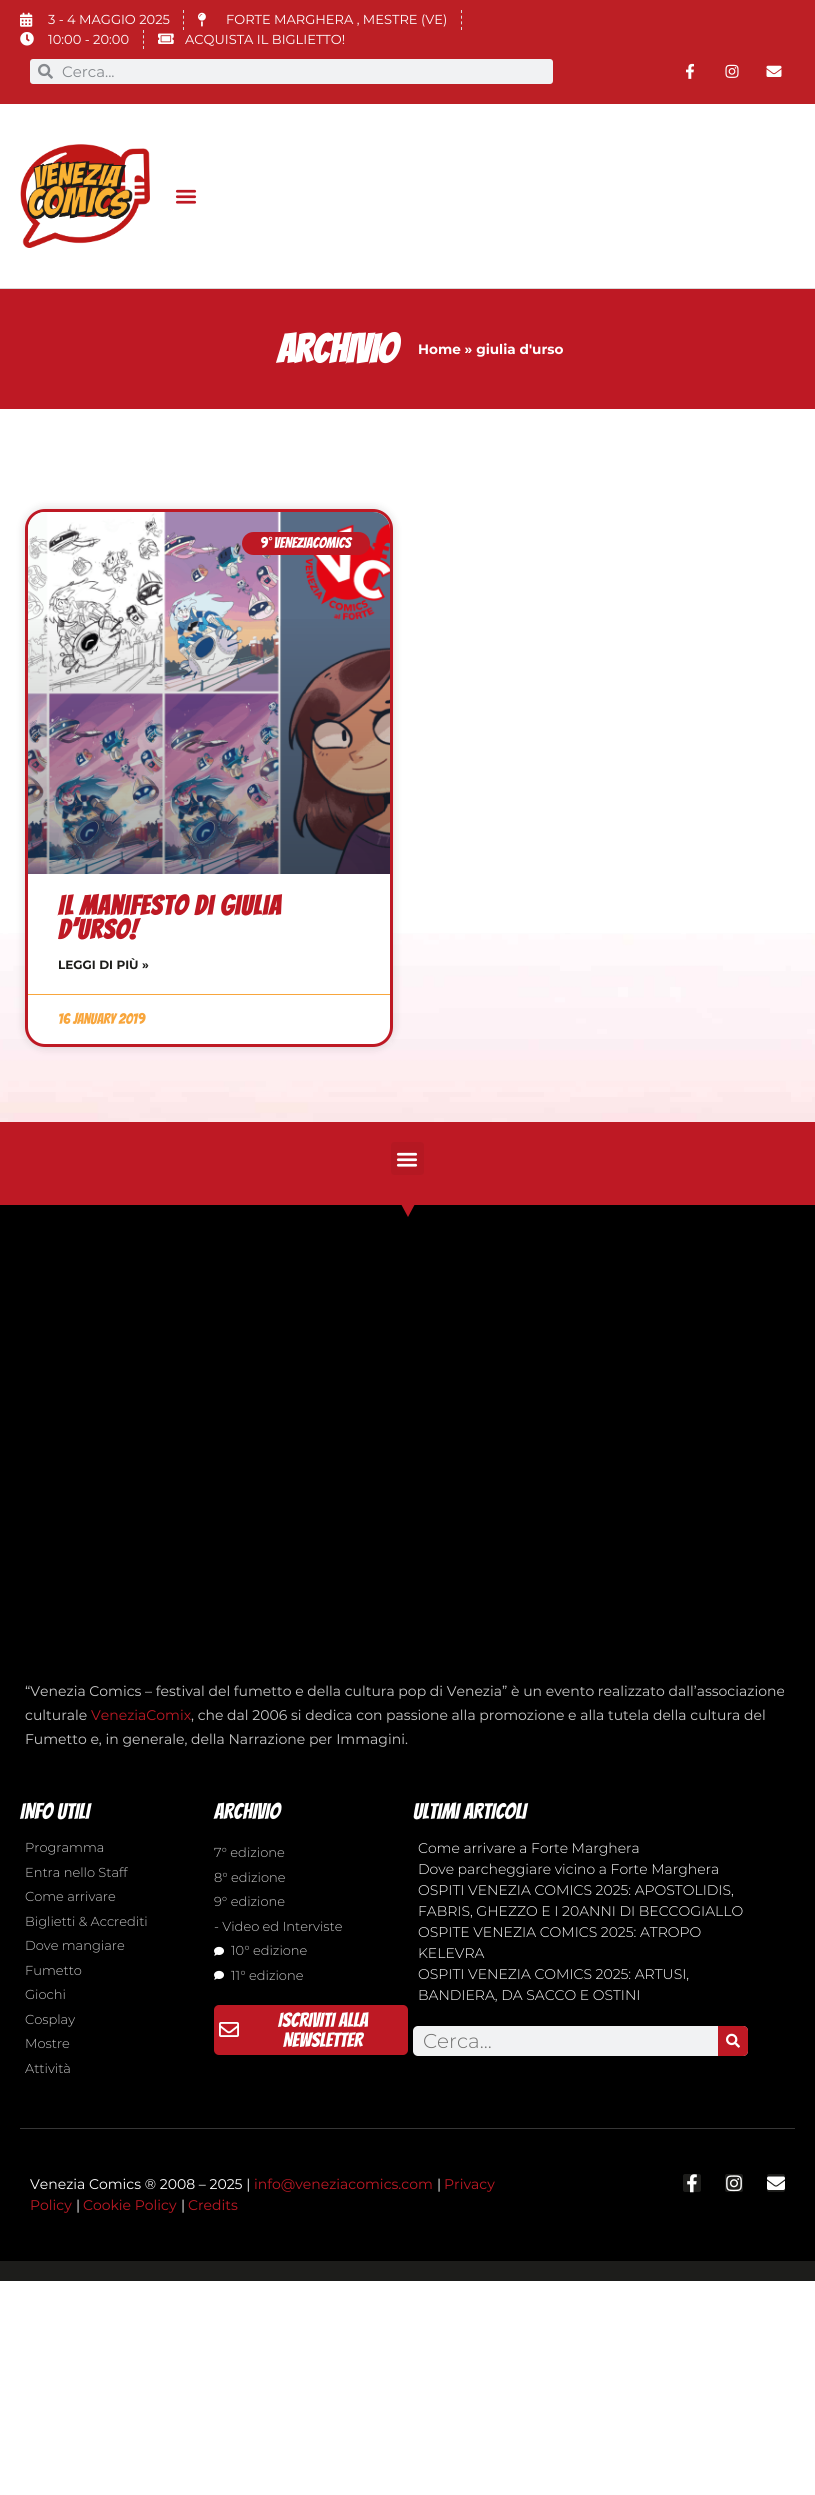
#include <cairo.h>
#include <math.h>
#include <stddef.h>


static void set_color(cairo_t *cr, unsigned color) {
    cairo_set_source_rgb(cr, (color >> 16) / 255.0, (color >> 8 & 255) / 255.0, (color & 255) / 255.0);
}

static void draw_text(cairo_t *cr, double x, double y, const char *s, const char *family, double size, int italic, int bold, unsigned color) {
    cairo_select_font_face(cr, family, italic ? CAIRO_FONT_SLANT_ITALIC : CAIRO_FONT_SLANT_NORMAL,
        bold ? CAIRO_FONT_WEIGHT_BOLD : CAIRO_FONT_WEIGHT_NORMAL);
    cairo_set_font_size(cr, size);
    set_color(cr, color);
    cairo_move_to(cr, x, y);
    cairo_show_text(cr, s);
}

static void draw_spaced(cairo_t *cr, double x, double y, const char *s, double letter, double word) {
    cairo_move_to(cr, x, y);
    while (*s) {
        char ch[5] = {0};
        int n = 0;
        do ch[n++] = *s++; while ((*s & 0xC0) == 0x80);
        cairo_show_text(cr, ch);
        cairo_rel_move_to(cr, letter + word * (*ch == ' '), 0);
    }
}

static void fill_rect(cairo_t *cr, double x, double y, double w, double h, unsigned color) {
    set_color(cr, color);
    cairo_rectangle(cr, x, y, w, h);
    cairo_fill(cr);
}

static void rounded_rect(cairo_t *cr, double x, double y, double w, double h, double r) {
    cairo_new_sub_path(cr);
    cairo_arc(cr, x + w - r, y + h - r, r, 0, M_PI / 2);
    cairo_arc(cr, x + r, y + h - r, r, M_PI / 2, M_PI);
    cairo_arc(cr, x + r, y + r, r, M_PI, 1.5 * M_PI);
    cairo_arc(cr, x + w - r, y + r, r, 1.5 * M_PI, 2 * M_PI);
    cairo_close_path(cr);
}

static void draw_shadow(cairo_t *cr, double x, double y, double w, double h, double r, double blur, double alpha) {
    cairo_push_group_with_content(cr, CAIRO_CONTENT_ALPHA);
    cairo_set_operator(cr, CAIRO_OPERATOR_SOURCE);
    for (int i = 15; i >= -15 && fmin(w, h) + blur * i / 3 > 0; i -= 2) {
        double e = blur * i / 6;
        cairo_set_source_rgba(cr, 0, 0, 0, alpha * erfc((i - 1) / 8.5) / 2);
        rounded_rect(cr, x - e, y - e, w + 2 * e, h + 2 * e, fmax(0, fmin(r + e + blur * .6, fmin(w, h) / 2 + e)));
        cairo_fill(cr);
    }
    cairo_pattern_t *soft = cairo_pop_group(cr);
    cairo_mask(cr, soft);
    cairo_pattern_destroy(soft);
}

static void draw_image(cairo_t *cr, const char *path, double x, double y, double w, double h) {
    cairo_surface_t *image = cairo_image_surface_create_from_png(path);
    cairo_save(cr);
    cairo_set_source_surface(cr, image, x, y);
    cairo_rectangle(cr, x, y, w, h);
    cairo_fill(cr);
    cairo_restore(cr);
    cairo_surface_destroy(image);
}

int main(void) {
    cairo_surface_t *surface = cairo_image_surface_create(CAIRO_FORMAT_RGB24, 815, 2495);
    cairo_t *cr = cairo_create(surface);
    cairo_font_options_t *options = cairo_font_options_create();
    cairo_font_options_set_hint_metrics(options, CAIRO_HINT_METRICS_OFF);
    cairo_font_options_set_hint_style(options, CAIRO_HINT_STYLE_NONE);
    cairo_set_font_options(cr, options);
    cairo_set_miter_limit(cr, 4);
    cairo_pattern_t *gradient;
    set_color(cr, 0xFFFFFF);
    cairo_paint(cr);
    fill_rect(cr, 0, 0, 815, 104, 0xBD1F25);
    draw_image(cr, "assets/img1.png", 20, 12, 13, 15);
    draw_text(cr, 48, 24, "3 - 4 MAGGIO 2025", "Montserrat", 13, 0, 0, 0xFFFFFF);
    cairo_new_path(cr);
    cairo_move_to(cr, 183.5, 10);
    cairo_line_to(cr, 183.5, 30);
    set_color(cr, 0xDDDDDD);
    cairo_set_line_width(cr, 1);
    cairo_set_dash(cr, (double[]){3, 2.67}, 2, 0);
    cairo_stroke(cr);
    draw_image(cr, "assets/img2.png", 198, 12, 8, 15);
    draw_text(cr, 226, 24, "FORTE MARGHERA , MESTRE (VE)", "Montserrat", 13, 0, 0, 0xFFFFFF);
    cairo_new_path(cr);
    cairo_move_to(cr, 461.5, 10);
    cairo_line_to(cr, 461.5, 30);
    set_color(cr, 0xDDDDDD);
    cairo_stroke(cr);
    draw_image(cr, "assets/img3.png", 20, 32, 14, 14);
    draw_text(cr, 48, 44, "10:00 - 20:00", "Montserrat", 13, 0, 0, 0xFFFFFF);
    cairo_new_path(cr);
    cairo_move_to(cr, 143.5, 30);
    cairo_line_to(cr, 143.5, 49);
    set_color(cr, 0xDDDDDD);
    cairo_set_dash(cr, (double[]){3, 2.33}, 2, 0);
    cairo_stroke(cr);
    draw_image(cr, "assets/img4.png", 158, 33, 16, 11);
    draw_text(cr, 185, 44, "ACQUISTA IL BIGLIETTO!", "Montserrat", 13, 0, 0, 0xFFFFFF);
    set_color(cr, 0xF1F2F3);
    rounded_rect(cr, 30, 59, 523, 25, 3);
    cairo_fill(cr);
    draw_image(cr, "assets/img5.png", 38, 63, 15, 16);
    draw_text(cr, 62, 77, "Cerca...", "Montserrat", 15, 0, 0, 0x868A8E);
    draw_image(cr, "assets/img6.png", 686, 63, 8, 16);
    draw_image(cr, "assets/img7.png", 725, 64, 14, 14);
    draw_image(cr, "assets/img8.png", 766, 65, 16, 12);
    fill_rect(cr, 0, 288, 815, 1, 0xD8D8D8);
    draw_image(cr, "assets/img9.png", 20, 144, 130, 104);
    draw_image(cr, "assets/img10.png", 175, 189, 22, 15);
    fill_rect(cr, 0, 289, 815, 120, 0xBE1924);
    draw_text(cr, 277, 363, "ARCHIVIO", "Bangers", 40, 0, 1, 0xFFFFFF);
    draw_text(cr, 418, 354, "Home » giulia d'urso", "Montserrat", 13.6, 0, 1, 0xFFFFFF);
    draw_image(cr, "assets/img12.png", 0, 933, 815, 189);
    set_color(cr, 0x000000);
    draw_shadow(cr, 25, 509, 368, 538, 20, 5, 0.15);
    set_color(cr, 0xFFFFFF);
    rounded_rect(cr, 26.5, 510.5, 365, 535, 18.5);
    cairo_fill_preserve(cr);
    set_color(cr, 0xBE1924);
    cairo_set_line_width(cr, 3);
    cairo_set_dash(cr, NULL, 0, 0);
    cairo_stroke(cr);
    draw_image(cr, "assets/img11.png", 28, 512, 362, 362);
    gradient = cairo_pattern_create_linear(209, 874, 209, 512);
    cairo_pattern_add_color_stop_rgba(gradient, 0, 0, 0, 0, 0.35);
    cairo_pattern_add_color_stop_rgba(gradient, 0.75, 0, 0, 0, 0);
    cairo_set_source(cr, gradient);
    cairo_pattern_destroy(gradient);
    cairo_rectangle(cr, 28, 619, 362, 255);
    cairo_fill(cr);
    set_color(cr, 0xBE1924);
    rounded_rect(cr, 242, 532, 128, 23, 11.5);
    cairo_fill(cr);
    draw_text(cr, 260, 548, "9° VENEZIACOMICS", "Bangers", 15, 0, 0, 0xFFFFFF);
    cairo_select_font_face(cr, "Bangers", CAIRO_FONT_SLANT_NORMAL, CAIRO_FONT_WEIGHT_BOLD);
    cairo_set_font_size(cr, 27);
    set_color(cr, 0xBE1924);
    draw_spaced(cr, 58, 915, "Il manifesto di Giulia", 1, 0);
    draw_spaced(cr, 58, 939, "D’Urso!", 1, 0);
    draw_text(cr, 58, 969, "LEGGI DI PIÙ »", "Montserrat", 12, 0, 1, 0x1D1D1B);
    fill_rect(cr, 28, 994, 362, 1, 0xF8A63D);
    draw_text(cr, 58, 1024, "16 January 2019", "Bangers", 15, 0, 0, 0xF8A63D);
    fill_rect(cr, 0, 1122, 815, 83, 0xBE1924);
    set_color(cr, 0xB51822);
    rounded_rect(cr, 391, 1142, 33, 33, 3);
    cairo_fill(cr);
    draw_image(cr, "assets/img13.png", 396, 1152, 22, 15);
    fill_rect(cr, 0, 1205, 815, 1056, 0x000000);
    set_color(cr, 0xBE1924);
    cairo_new_path(cr);
    cairo_move_to(cr, 408, 1217);
    cairo_line_to(cr, 401, 1204);
    cairo_line_to(cr, 415, 1204);
    cairo_close_path(cr);
    cairo_fill(cr);
    draw_text(cr, 25, 1696, "“Venezia Comics – festival del fumetto e della cultura pop di Venezia” è un evento realizzato dall’associazione", "Montserrat", 14, 0, 0, 0xC9C9C9);
    draw_text(cr, 25, 1720, "culturale", "Montserrat", 14, 0, 0, 0xC9C9C9);
    draw_text(cr, 91, 1720, "VeneziaComix", "Montserrat", 14, 0, 0, 0xBE1924);
    draw_text(cr, 191, 1720, ", che dal 2006 si dedica con passione alla promozione e alla tutela della cultura del", "Montserrat", 14, 0, 0, 0xC9C9C9);
    draw_text(cr, 25, 1744, "Fumetto e, in generale, della Narrazione per Immagini.", "Montserrat", 14, 0, 0, 0xC9C9C9);
    draw_text(cr, 20, 1819, "INFO UTILI", "Bangers", 22, 0, 0, 0xFFFFFF);
    draw_text(cr, 25, 1852, "Programma", "Montserrat Light", 13, 0, 0, 0xC9C9C9);
    draw_text(cr, 25, 1877, "Entra nello Staff", "Montserrat Light", 13, 0, 0, 0xC9C9C9);
    draw_text(cr, 25, 1901, "Come arrivare", "Montserrat Light", 13, 0, 0, 0xC9C9C9);
    draw_text(cr, 25, 1926, "Biglietti & Accrediti", "Montserrat Light", 13, 0, 0, 0xC9C9C9);
    draw_text(cr, 25, 1950, "Dove mangiare", "Montserrat Light", 13, 0, 0, 0xC9C9C9);
    draw_text(cr, 25, 1975, "Fumetto", "Montserrat Light", 13, 0, 0, 0xC9C9C9);
    draw_text(cr, 25, 1999, "Giochi", "Montserrat Light", 13, 0, 0, 0xC9C9C9);
    draw_text(cr, 25, 2024, "Cosplay", "Montserrat Light", 13, 0, 0, 0xC9C9C9);
    draw_text(cr, 25, 2048, "Mostre", "Montserrat Light", 13, 0, 0, 0xC9C9C9);
    draw_text(cr, 25, 2073, "Attività", "Montserrat Light", 13, 0, 0, 0xC9C9C9);
    draw_text(cr, 214, 1819, "ARCHIVIO", "Bangers", 22, 0, 0, 0xFFFFFF);
    draw_text(cr, 214, 1857, "7° edizione", "Montserrat Light", 13, 0, 0, 0xC9C9C9);
    draw_text(cr, 214, 1882, "8° edizione", "Montserrat Light", 13, 0, 0, 0xC9C9C9);
    draw_text(cr, 214, 1906, "9° edizione", "Montserrat Light", 13, 0, 0, 0xC9C9C9);
    draw_text(cr, 214, 1931, "- Video ed Interviste", "Montserrat Light", 13, 0, 0, 0xC9C9C9);
    draw_image(cr, "assets/img14.png", 214, 1946, 10, 10);
    draw_text(cr, 231, 1955, "10° edizione", "Montserrat Light", 13, 0, 0, 0xC9C9C9);
    draw_image(cr, "assets/img14.png", 214, 1970, 10, 10);
    draw_text(cr, 231, 1980, "11° edizione", "Montserrat Light", 13, 0, 0, 0xC9C9C9);
    set_color(cr, 0xBE1924);
    rounded_rect(cr, 214, 2005, 194, 50, 5);
    cairo_fill(cr);
    draw_image(cr, "assets/img15.png", 219, 2022, 20, 15);
    draw_text(cr, 278, 2027, "ISCRIVITI ALLA", "Bangers", 20, 0, 0, 0xFFFFFF);
    draw_text(cr, 283, 2047, "NEWSLETTER", "Bangers", 20, 0, 0, 0xFFFFFF);
    draw_text(cr, 413, 1819, "ULTIMI ARTICOLI", "Bangers", 22, 0, 0, 0xFFFFFF);
    draw_text(cr, 418, 1853, "Come arrivare a Forte Marghera", "Montserrat Light", 14, 0, 0, 0xFFFFFF);
    draw_text(cr, 418, 1874, "Dove parcheggiare vicino a Forte Marghera", "Montserrat Light", 14, 0, 0, 0xFFFFFF);
    draw_text(cr, 418, 1895, "OSPITI VENEZIA COMICS 2025: APOSTOLIDIS,", "Montserrat Light", 14, 0, 0, 0xFFFFFF);
    draw_text(cr, 418, 1916, "FABRIS, GHEZZO E I 20ANNI DI BECCOGIALLO", "Montserrat Light", 14, 0, 0, 0xFFFFFF);
    draw_text(cr, 418, 1937, "OSPITE VENEZIA COMICS 2025: ATROPO", "Montserrat Light", 14, 0, 0, 0xFFFFFF);
    draw_text(cr, 418, 1958, "KELEVRA", "Montserrat Light", 14, 0, 0, 0xFFFFFF);
    draw_text(cr, 418, 1979, "OSPITI VENEZIA COMICS 2025: ARTUSI,", "Montserrat Light", 14, 0, 0, 0xFFFFFF);
    draw_text(cr, 418, 2000, "BANDIERA, DA SACCO E OSTINI", "Montserrat Light", 14, 0, 0, 0xFFFFFF);
    set_color(cr, 0xF1F2F3);
    rounded_rect(cr, 413, 2026, 335, 30, 5);
    cairo_fill(cr);
    draw_text(cr, 423, 2048, "Cerca...", "Montserrat Light", 20, 0, 0, 0x727271);
    set_color(cr, 0xBE1924);
    cairo_new_path(cr);
    cairo_move_to(cr, 718, 2026);
    cairo_line_to(cr, 743, 2026);
    cairo_curve_to(cr, 746, 2026, 748, 2028, 748, 2031);
    cairo_line_to(cr, 748, 2051);
    cairo_curve_to(cr, 748, 2054, 746, 2056, 743, 2056);
    cairo_line_to(cr, 718, 2056);
    cairo_close_path(cr);
    cairo_fill(cr);
    draw_image(cr, "assets/img16.png", 726, 2033, 14, 15);
    fill_rect(cr, 20, 2128, 775, 1, 0x363636);
    draw_text(cr, 30, 2189, "Venezia Comics ® 2008 – 2025 |", "Montserrat", 14, 0, 0, 0xFFFFFF);
    draw_text(cr, 254, 2189, "info@veneziacomics.com", "Montserrat", 14, 0, 0, 0xBE1924);
    draw_text(cr, 437, 2189, "|", "Montserrat", 14, 0, 0, 0xFFFFFF);
    draw_text(cr, 444, 2189, "Privacy", "Montserrat", 14, 0, 0, 0xBE1924);
    draw_text(cr, 30, 2210, "Policy", "Montserrat", 14, 0, 0, 0xBE1924);
    draw_text(cr, 76, 2210, "|", "Montserrat", 14, 0, 0, 0xFFFFFF);
    draw_text(cr, 83, 2210, "Cookie Policy", "Montserrat", 14, 0, 0, 0xBE1924);
    draw_text(cr, 181, 2210, "|", "Montserrat", 14, 0, 0, 0xFFFFFF);
    draw_text(cr, 188, 2210, "Credits", "Montserrat", 14, 0, 0, 0xBE1924);
    set_color(cr, 0x1D1D1B);
    rounded_rect(cr, 683, 2174, 18, 18, 2);
    cairo_fill(cr);
    draw_image(cr, "assets/img17.png", 687, 2174, 10, 19);
    rounded_rect(cr, 725, 2174, 18, 18, 2);
    cairo_fill(cr);
    draw_image(cr, "assets/img18.png", 726, 2175, 16, 17);
    rounded_rect(cr, 767, 2174, 18, 18, 2);
    cairo_fill(cr);
    draw_image(cr, "assets/img19.png", 767, 2176, 18, 14);
    fill_rect(cr, 0, 2261, 815, 20, 0x1D1D1B);
    cairo_surface_write_to_png(surface, "output.png");
    cairo_font_options_destroy(options);
    cairo_destroy(cr);
    cairo_surface_destroy(surface);
    return 0;
}
